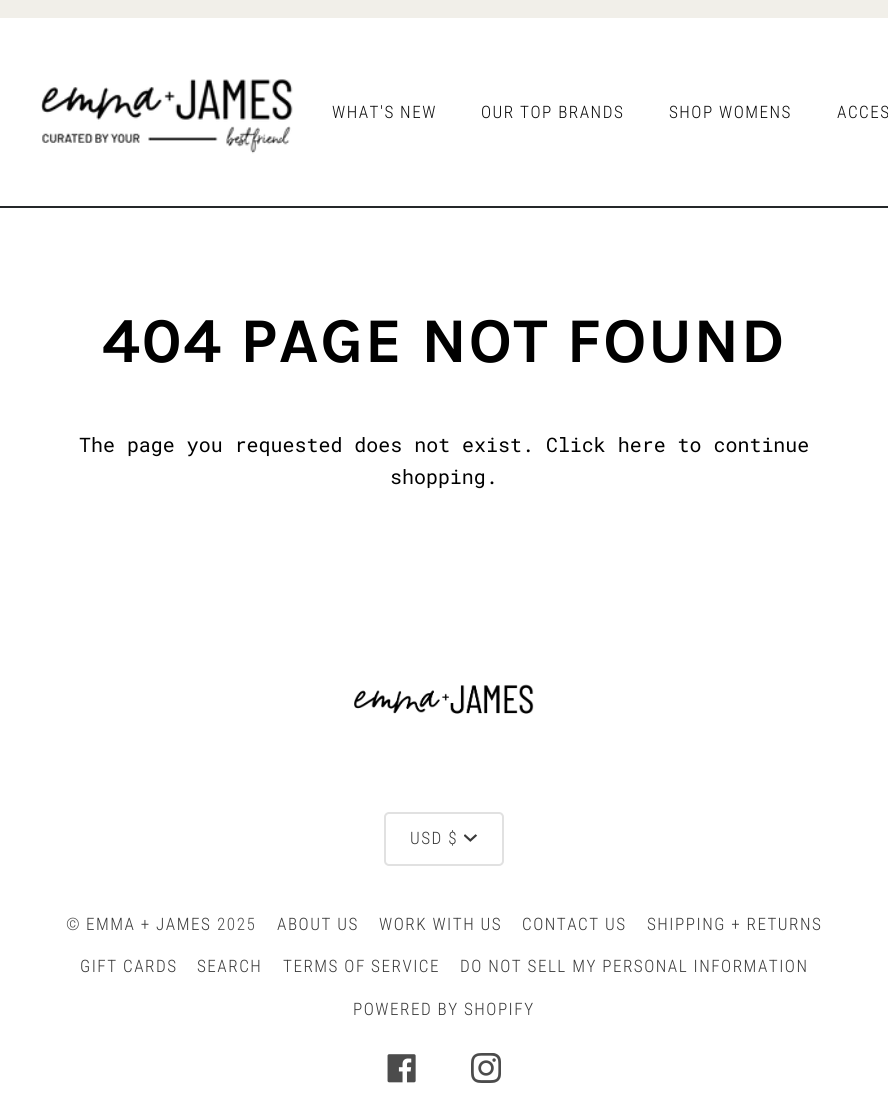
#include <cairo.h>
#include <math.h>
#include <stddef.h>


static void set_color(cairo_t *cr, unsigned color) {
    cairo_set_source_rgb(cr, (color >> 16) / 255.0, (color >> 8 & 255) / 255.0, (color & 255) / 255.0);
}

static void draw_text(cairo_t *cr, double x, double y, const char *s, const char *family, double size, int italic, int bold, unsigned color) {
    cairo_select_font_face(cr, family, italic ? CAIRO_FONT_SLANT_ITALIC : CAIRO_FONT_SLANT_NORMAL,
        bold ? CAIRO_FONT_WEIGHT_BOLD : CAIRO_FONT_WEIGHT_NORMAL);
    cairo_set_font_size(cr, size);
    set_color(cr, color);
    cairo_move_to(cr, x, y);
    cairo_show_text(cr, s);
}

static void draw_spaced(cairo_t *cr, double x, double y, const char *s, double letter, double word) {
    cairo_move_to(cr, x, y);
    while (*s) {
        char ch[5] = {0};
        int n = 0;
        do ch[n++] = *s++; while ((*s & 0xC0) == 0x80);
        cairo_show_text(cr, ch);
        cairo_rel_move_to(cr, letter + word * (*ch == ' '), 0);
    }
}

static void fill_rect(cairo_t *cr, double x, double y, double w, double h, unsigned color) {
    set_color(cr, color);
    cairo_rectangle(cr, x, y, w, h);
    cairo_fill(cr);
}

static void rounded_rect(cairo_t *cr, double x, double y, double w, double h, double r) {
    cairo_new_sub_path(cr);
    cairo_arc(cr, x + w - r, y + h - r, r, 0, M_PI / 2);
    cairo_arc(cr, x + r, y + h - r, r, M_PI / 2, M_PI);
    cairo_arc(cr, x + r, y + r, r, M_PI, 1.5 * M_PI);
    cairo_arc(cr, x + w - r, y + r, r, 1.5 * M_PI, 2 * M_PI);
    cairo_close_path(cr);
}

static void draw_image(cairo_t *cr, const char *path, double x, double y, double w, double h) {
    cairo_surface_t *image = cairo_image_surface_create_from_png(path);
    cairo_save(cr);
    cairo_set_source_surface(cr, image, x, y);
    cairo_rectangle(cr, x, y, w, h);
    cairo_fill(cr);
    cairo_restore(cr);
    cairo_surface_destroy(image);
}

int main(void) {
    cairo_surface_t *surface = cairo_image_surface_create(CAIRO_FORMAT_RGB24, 888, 1102);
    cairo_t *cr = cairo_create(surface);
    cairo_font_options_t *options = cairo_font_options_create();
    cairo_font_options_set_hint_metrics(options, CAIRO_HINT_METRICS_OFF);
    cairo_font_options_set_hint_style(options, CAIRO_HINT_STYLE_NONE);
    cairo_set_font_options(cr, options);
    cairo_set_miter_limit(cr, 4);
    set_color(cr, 0xFFFFFF);
    cairo_paint(cr);
    fill_rect(cr, 0, 0, 888, 18, 0xF1EFE9);
    fill_rect(cr, 0, 206, 888, 2, 0x242729);
    draw_image(cr, "assets/img1.png", 41, 79, 252, 75);
    cairo_select_font_face(cr, "Roboto Condensed Light", CAIRO_FONT_SLANT_NORMAL, CAIRO_FONT_WEIGHT_NORMAL);
    cairo_set_font_size(cr, 17.1);
    set_color(cr, 0x0A0A0A);
    draw_spaced(cr, 332, 118, "WHAT'S NEW", 1.5, 0);
    draw_spaced(cr, 481, 118, "OUR TOP BRANDS", 1.5, 0);
    draw_spaced(cr, 669, 118, "SHOP WOMENS", 1.5, 0);
    draw_spaced(cr, 837, 118, "ACCES", 1.5, 0);
    cairo_select_font_face(cr, "Karla", CAIRO_FONT_SLANT_NORMAL, CAIRO_FONT_WEIGHT_BOLD);
    cairo_set_font_size(cr, 63.75);
    set_color(cr, 0x000000);
    draw_spaced(cr, 102, 362, "404 PAGE NOT FOUND", 1.5, 0);
    draw_text(cr, 79, 452, "The page you requested does not exist. Click here to continue", "Roboto Mono", 19.95, 0, 0, 0x000000);
    draw_text(cr, 390, 484, "shopping.", "Roboto Mono", 19.95, 0, 0, 0x000000);
    draw_image(cr, "assets/img2.png", 354, 684, 180, 30);
    rounded_rect(cr, 385, 813, 118, 52, 4);
    set_color(cr, 0xE1E1E1);
    cairo_stroke(cr);
    cairo_select_font_face(cr, "Roboto Condensed Light", CAIRO_FONT_SLANT_NORMAL, CAIRO_FONT_WEIGHT_NORMAL);
    cairo_set_font_size(cr, 17.1);
    set_color(cr, 0x393939);
    draw_spaced(cr, 410, 844, "USD $", 1.5, 0);
    draw_image(cr, "assets/img3.png", 464, 834, 14, 8);
    set_color(cr, 0x4D4D4D);
    draw_spaced(cr, 66, 930, "©", 1.5, 0);
    set_color(cr, 0x393939);
    draw_spaced(cr, 86, 930, "EMMA + JAMES", 1.5, 0);
    set_color(cr, 0x4D4D4D);
    draw_spaced(cr, 217, 930, "2025", 1.5, 0);
    set_color(cr, 0x393939);
    draw_spaced(cr, 277, 930, "ABOUT US", 1.5, 0);
    draw_spaced(cr, 379, 930, "WORK WITH US", 1.5, 0);
    draw_spaced(cr, 522, 930, "CONTACT US", 1.5, 0);
    draw_spaced(cr, 647, 930, "SHIPPING + RETURNS", 1.5, 0);
    draw_spaced(cr, 80, 972, "GIFT CARDS", 1.5, 0);
    draw_spaced(cr, 197, 972, "SEARCH", 1.5, 0);
    draw_spaced(cr, 283, 972, "TERMS OF SERVICE", 1.5, 0);
    draw_spaced(cr, 460, 972, "DO NOT SELL MY PERSONAL INFORMATION", 1.5, 0);
    draw_spaced(cr, 353, 1015, "POWERED BY SHOPIFY", 1.5, 0);
    draw_image(cr, "assets/img4.png", 387, 1054, 29, 29);
    draw_image(cr, "assets/img5.png", 471, 1053, 30, 30);
    cairo_surface_write_to_png(surface, "output.png");
    cairo_font_options_destroy(options);
    cairo_destroy(cr);
    cairo_surface_destroy(surface);
    return 0;
}
